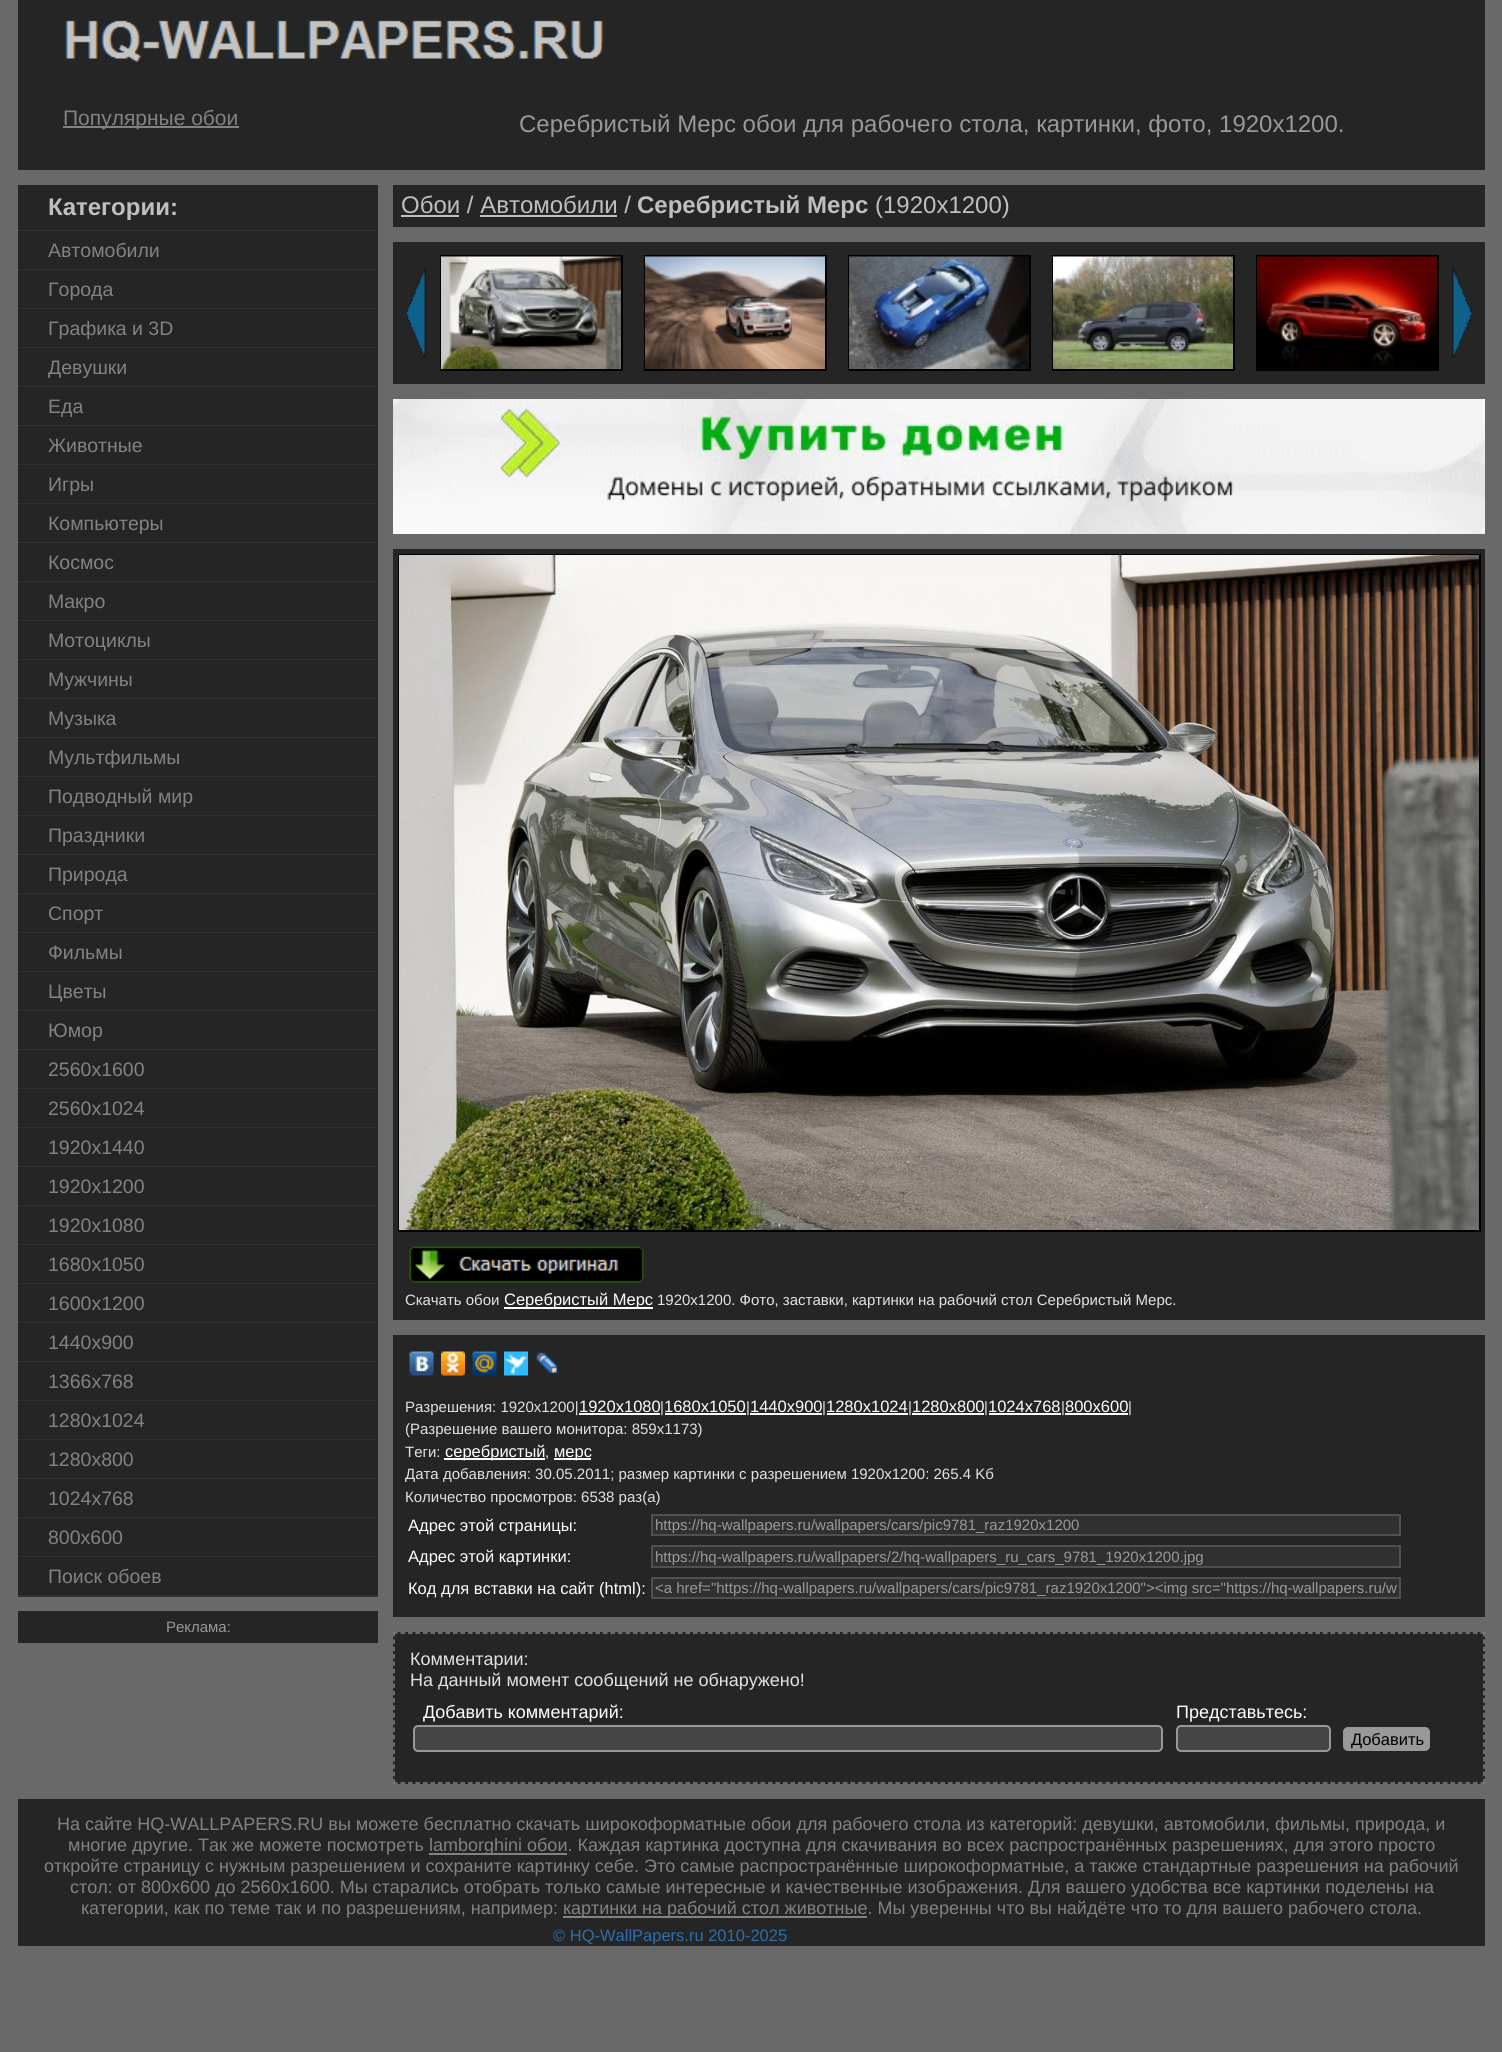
#include <cairo.h>
#include <math.h>
#include <stddef.h>


static void set_color(cairo_t *cr, unsigned color) {
    cairo_set_source_rgb(cr, (color >> 16) / 255.0, (color >> 8 & 255) / 255.0, (color & 255) / 255.0);
}

static void draw_text(cairo_t *cr, double x, double y, const char *s, const char *family, double size, int italic, int bold, unsigned color) {
    cairo_select_font_face(cr, family, italic ? CAIRO_FONT_SLANT_ITALIC : CAIRO_FONT_SLANT_NORMAL,
        bold ? CAIRO_FONT_WEIGHT_BOLD : CAIRO_FONT_WEIGHT_NORMAL);
    cairo_set_font_size(cr, size);
    set_color(cr, color);
    cairo_move_to(cr, x, y);
    cairo_show_text(cr, s);
}

static void fill_rect(cairo_t *cr, double x, double y, double w, double h, unsigned color) {
    set_color(cr, color);
    cairo_rectangle(cr, x, y, w, h);
    cairo_fill(cr);
}

static void rounded_rect(cairo_t *cr, double x, double y, double w, double h, double r) {
    cairo_new_sub_path(cr);
    cairo_arc(cr, x + w - r, y + h - r, r, 0, M_PI / 2);
    cairo_arc(cr, x + r, y + h - r, r, M_PI / 2, M_PI);
    cairo_arc(cr, x + r, y + r, r, M_PI, 1.5 * M_PI);
    cairo_arc(cr, x + w - r, y + r, r, 1.5 * M_PI, 2 * M_PI);
    cairo_close_path(cr);
}

static void draw_image(cairo_t *cr, const char *path, double x, double y, double w, double h) {
    cairo_surface_t *image = cairo_image_surface_create_from_png(path);
    cairo_save(cr);
    cairo_set_source_surface(cr, image, x, y);
    cairo_rectangle(cr, x, y, w, h);
    cairo_fill(cr);
    cairo_restore(cr);
    cairo_surface_destroy(image);
}

int main(void) {
    cairo_surface_t *surface = cairo_image_surface_create(CAIRO_FORMAT_RGB24, 1502, 2052);
    cairo_t *cr = cairo_create(surface);
    cairo_font_options_t *options = cairo_font_options_create();
    cairo_font_options_set_hint_metrics(options, CAIRO_HINT_METRICS_OFF);
    cairo_font_options_set_hint_style(options, CAIRO_HINT_STYLE_NONE);
    cairo_set_font_options(cr, options);
    cairo_set_miter_limit(cr, 4);
    set_color(cr, 0x696969);
    cairo_paint(cr);
    fill_rect(cr, 18, 0, 1467, 80, 0x252525);
    draw_image(cr, "assets/img1.png", 65, 20, 539, 42);
    fill_rect(cr, 18, 80, 1467, 90, 0x252525);
    fill_rect(cr, 63, 126, 176, 2, 0x828282);
    draw_text(cr, 63, 125, "Популярные обои", "Liberation Sans", 21, 0, 0, 0x828282);
    draw_text(cr, 519, 132, "Серебристый Мерс обои для рабочего стола, картинки, фото, 1920x1200.", "Liberation Sans", 24, 0, 0, 0x999999);
    fill_rect(cr, 18, 185, 360, 45, 0x252525);
    fill_rect(cr, 18, 230, 360, 1, 0x303030);
    draw_text(cr, 48, 215, "Категории:", "Liberation Sans", 24, 0, 1, 0xBFBFBF);
    fill_rect(cr, 18, 231, 360, 38, 0x252525);
    fill_rect(cr, 18, 269, 360, 1, 0x303030);
    draw_text(cr, 48, 257, "Автомобили", "Liberation Sans", 19.5, 0, 0, 0x828282);
    fill_rect(cr, 18, 270, 360, 38, 0x252525);
    fill_rect(cr, 18, 308, 360, 1, 0x303030);
    draw_text(cr, 48, 296, "Города", "Liberation Sans", 19.5, 0, 0, 0x828282);
    fill_rect(cr, 18, 309, 360, 38, 0x252525);
    fill_rect(cr, 18, 347, 360, 1, 0x303030);
    draw_text(cr, 48, 335, "Графика и 3D", "Liberation Sans", 19.5, 0, 0, 0x828282);
    fill_rect(cr, 18, 348, 360, 38, 0x252525);
    fill_rect(cr, 18, 386, 360, 1, 0x303030);
    draw_text(cr, 48, 374, "Девушки", "Liberation Sans", 19.5, 0, 0, 0x828282);
    fill_rect(cr, 18, 387, 360, 38, 0x252525);
    fill_rect(cr, 18, 425, 360, 1, 0x303030);
    draw_text(cr, 48, 413, "Еда", "Liberation Sans", 19.5, 0, 0, 0x828282);
    fill_rect(cr, 18, 426, 360, 38, 0x252525);
    fill_rect(cr, 18, 464, 360, 1, 0x303030);
    draw_text(cr, 48, 452, "Животные", "Liberation Sans", 19.5, 0, 0, 0x828282);
    fill_rect(cr, 18, 465, 360, 38, 0x252525);
    fill_rect(cr, 18, 503, 360, 1, 0x303030);
    draw_text(cr, 48, 491, "Игры", "Liberation Sans", 19.5, 0, 0, 0x828282);
    fill_rect(cr, 18, 504, 360, 38, 0x252525);
    fill_rect(cr, 18, 542, 360, 1, 0x303030);
    draw_text(cr, 48, 530, "Компьютеры", "Liberation Sans", 19.5, 0, 0, 0x828282);
    fill_rect(cr, 18, 543, 360, 38, 0x252525);
    fill_rect(cr, 18, 581, 360, 1, 0x303030);
    draw_text(cr, 48, 569, "Космос", "Liberation Sans", 19.5, 0, 0, 0x828282);
    fill_rect(cr, 18, 582, 360, 38, 0x252525);
    fill_rect(cr, 18, 620, 360, 1, 0x303030);
    draw_text(cr, 48, 608, "Макро", "Liberation Sans", 19.5, 0, 0, 0x828282);
    fill_rect(cr, 18, 621, 360, 38, 0x252525);
    fill_rect(cr, 18, 659, 360, 1, 0x303030);
    draw_text(cr, 48, 647, "Мотоциклы", "Liberation Sans", 19.5, 0, 0, 0x828282);
    fill_rect(cr, 18, 660, 360, 38, 0x252525);
    fill_rect(cr, 18, 698, 360, 1, 0x303030);
    draw_text(cr, 48, 686, "Мужчины", "Liberation Sans", 19.5, 0, 0, 0x828282);
    fill_rect(cr, 18, 699, 360, 38, 0x252525);
    fill_rect(cr, 18, 737, 360, 1, 0x303030);
    draw_text(cr, 48, 725, "Музыка", "Liberation Sans", 19.5, 0, 0, 0x828282);
    fill_rect(cr, 18, 738, 360, 38, 0x252525);
    fill_rect(cr, 18, 776, 360, 1, 0x303030);
    draw_text(cr, 48, 764, "Мультфильмы", "Liberation Sans", 19.5, 0, 0, 0x828282);
    fill_rect(cr, 18, 777, 360, 38, 0x252525);
    fill_rect(cr, 18, 815, 360, 1, 0x303030);
    draw_text(cr, 48, 803, "Подводный мир", "Liberation Sans", 19.5, 0, 0, 0x828282);
    fill_rect(cr, 18, 816, 360, 38, 0x252525);
    fill_rect(cr, 18, 854, 360, 1, 0x303030);
    draw_text(cr, 48, 842, "Праздники", "Liberation Sans", 19.5, 0, 0, 0x828282);
    fill_rect(cr, 18, 855, 360, 38, 0x252525);
    fill_rect(cr, 18, 893, 360, 1, 0x303030);
    draw_text(cr, 48, 881, "Природа", "Liberation Sans", 19.5, 0, 0, 0x828282);
    fill_rect(cr, 18, 894, 360, 38, 0x252525);
    fill_rect(cr, 18, 932, 360, 1, 0x303030);
    draw_text(cr, 48, 920, "Спорт", "Liberation Sans", 19.5, 0, 0, 0x828282);
    fill_rect(cr, 18, 933, 360, 38, 0x252525);
    fill_rect(cr, 18, 971, 360, 1, 0x303030);
    draw_text(cr, 48, 959, "Фильмы", "Liberation Sans", 19.5, 0, 0, 0x828282);
    fill_rect(cr, 18, 972, 360, 38, 0x252525);
    fill_rect(cr, 18, 1010, 360, 1, 0x303030);
    draw_text(cr, 48, 998, "Цветы", "Liberation Sans", 19.5, 0, 0, 0x828282);
    fill_rect(cr, 18, 1011, 360, 38, 0x252525);
    fill_rect(cr, 18, 1049, 360, 1, 0x303030);
    draw_text(cr, 48, 1037, "Юмор", "Liberation Sans", 19.5, 0, 0, 0x828282);
    fill_rect(cr, 18, 1050, 360, 38, 0x252525);
    fill_rect(cr, 18, 1088, 360, 1, 0x303030);
    draw_text(cr, 48, 1076, "2560x1600", "Liberation Sans", 19.5, 0, 0, 0x828282);
    fill_rect(cr, 18, 1089, 360, 38, 0x252525);
    fill_rect(cr, 18, 1127, 360, 1, 0x303030);
    draw_text(cr, 48, 1115, "2560x1024", "Liberation Sans", 19.5, 0, 0, 0x828282);
    fill_rect(cr, 18, 1128, 360, 38, 0x252525);
    fill_rect(cr, 18, 1166, 360, 1, 0x303030);
    draw_text(cr, 48, 1154, "1920x1440", "Liberation Sans", 19.5, 0, 0, 0x828282);
    fill_rect(cr, 18, 1167, 360, 38, 0x252525);
    fill_rect(cr, 18, 1205, 360, 1, 0x303030);
    draw_text(cr, 48, 1193, "1920x1200", "Liberation Sans", 19.5, 0, 0, 0x828282);
    fill_rect(cr, 18, 1206, 360, 38, 0x252525);
    fill_rect(cr, 18, 1244, 360, 1, 0x303030);
    draw_text(cr, 48, 1232, "1920x1080", "Liberation Sans", 19.5, 0, 0, 0x828282);
    fill_rect(cr, 18, 1245, 360, 38, 0x252525);
    fill_rect(cr, 18, 1283, 360, 1, 0x303030);
    draw_text(cr, 48, 1271, "1680x1050", "Liberation Sans", 19.5, 0, 0, 0x828282);
    fill_rect(cr, 18, 1284, 360, 38, 0x252525);
    fill_rect(cr, 18, 1322, 360, 1, 0x303030);
    draw_text(cr, 48, 1310, "1600x1200", "Liberation Sans", 19.5, 0, 0, 0x828282);
    fill_rect(cr, 18, 1323, 360, 38, 0x252525);
    fill_rect(cr, 18, 1361, 360, 1, 0x303030);
    draw_text(cr, 48, 1349, "1440x900", "Liberation Sans", 19.5, 0, 0, 0x828282);
    fill_rect(cr, 18, 1362, 360, 38, 0x252525);
    fill_rect(cr, 18, 1400, 360, 1, 0x303030);
    draw_text(cr, 48, 1388, "1366x768", "Liberation Sans", 19.5, 0, 0, 0x828282);
    fill_rect(cr, 18, 1401, 360, 38, 0x252525);
    fill_rect(cr, 18, 1439, 360, 1, 0x303030);
    draw_text(cr, 48, 1427, "1280x1024", "Liberation Sans", 19.5, 0, 0, 0x828282);
    fill_rect(cr, 18, 1440, 360, 38, 0x252525);
    fill_rect(cr, 18, 1478, 360, 1, 0x303030);
    draw_text(cr, 48, 1466, "1280x800", "Liberation Sans", 19.5, 0, 0, 0x828282);
    fill_rect(cr, 18, 1479, 360, 38, 0x252525);
    fill_rect(cr, 18, 1517, 360, 1, 0x303030);
    draw_text(cr, 48, 1505, "1024x768", "Liberation Sans", 19.5, 0, 0, 0x828282);
    fill_rect(cr, 18, 1518, 360, 38, 0x252525);
    fill_rect(cr, 18, 1556, 360, 1, 0x303030);
    draw_text(cr, 48, 1544, "800x600", "Liberation Sans", 19.5, 0, 0, 0x828282);
    fill_rect(cr, 18, 1557, 360, 38, 0x252525);
    fill_rect(cr, 18, 1595, 360, 2, 0x303030);
    draw_text(cr, 48, 1583, "Поиск обоев", "Liberation Sans", 19.5, 0, 0, 0x828282);
    fill_rect(cr, 18, 1611, 360, 32, 0x252525);
    draw_text(cr, 166, 1632, "Реклама:", "Liberation Sans", 15, 0, 0, 0x999999);
    fill_rect(cr, 393, 185, 1092, 42, 0x252525);
    draw_text(cr, 401, 213, "Обои / Автомобили /", "Liberation Sans", 24, 0, 0, 0xBFBFBF);
    fill_rect(cr, 401, 215, 58, 2, 0xBFBFBF);
    draw_text(cr, 637, 213, "Серебристый Мерс", "Liberation Sans", 24, 0, 1, 0xBFBFBF);
    draw_text(cr, 875, 213, "(1920x1200)", "Liberation Sans", 24, 0, 0, 0xBFBFBF);
    fill_rect(cr, 480, 215, 137, 2, 0xBFBFBF);
    fill_rect(cr, 393, 242, 1092, 142, 0x252525);
    draw_image(cr, "assets/img2.png", 405, 268, 21, 91);
    cairo_rectangle(cr, 441, 256, 181, 114);
    set_color(cr, 0x000000);
    cairo_stroke(cr);
    cairo_rectangle(cr, 645, 256, 181, 114);
    cairo_stroke(cr);
    cairo_rectangle(cr, 849, 256, 181, 114);
    cairo_stroke(cr);
    cairo_rectangle(cr, 1053, 256, 181, 114);
    cairo_stroke(cr);
    cairo_rectangle(cr, 1257, 256, 181, 114);
    cairo_stroke(cr);
    draw_image(cr, "assets/img3.png", 441, 256, 180, 113);
    draw_image(cr, "assets/img4.png", 645, 256, 180, 113);
    draw_image(cr, "assets/img5.png", 849, 256, 180, 113);
    draw_image(cr, "assets/img6.png", 1053, 256, 180, 113);
    draw_image(cr, "assets/img7.png", 1257, 256, 180, 113);
    draw_image(cr, "assets/img8.png", 1452, 268, 21, 91);
    draw_image(cr, "assets/img9.png", 393, 399, 1092, 135);
    fill_rect(cr, 393, 549, 1092, 771, 0x252525);
    cairo_rectangle(cr, 399, 555, 1081, 676);
    set_color(cr, 0x000000);
    cairo_stroke(cr);
    draw_image(cr, "assets/img10.png", 399, 555, 1080, 675);
    draw_image(cr, "assets/img11.png", 409, 1246, 235, 37);
    draw_text(cr, 405, 1305, "Скачать обои", "Liberation Sans", 15, 0, 0, 0xE2E2E2);
    fill_rect(cr, 504, 1307, 149, 2, 0xFFFFFF);
    draw_text(cr, 504, 1305, "Серебристый Мерс", "Liberation Sans", 16.5, 0, 0, 0xFFFFFF);
    draw_text(cr, 657, 1305, "1920x1200. Фото, заставки, картинки на рабочий стол Серебристый Мерс.", "Liberation Sans", 15, 0, 0, 0xE2E2E2);
    fill_rect(cr, 393, 1335, 1092, 282, 0x252525);
    draw_image(cr, "assets/img12.png", 409, 1351, 25, 25);
    draw_image(cr, "assets/img13.png", 441, 1351, 24, 25);
    draw_image(cr, "assets/img14.png", 472, 1351, 25, 25);
    draw_image(cr, "assets/img15.png", 504, 1351, 24, 25);
    draw_image(cr, "assets/img16.png", 535, 1351, 25, 25);
    draw_text(cr, 405, 1412, "Разрешения: 1920x1200|", "Liberation Sans", 15, 0, 0, 0xE2E2E2);
    draw_text(cr, 579, 1412, "1920x1080", "Liberation Sans", 16.5, 0, 0, 0xFFFFFF);
    fill_rect(cr, 579, 1413, 81, 2, 0xFFFFFF);
    draw_text(cr, 660, 1412, "|", "Liberation Sans", 15, 0, 0, 0xE2E2E2);
    draw_text(cr, 664, 1412, "1680x1050", "Liberation Sans", 16.5, 0, 0, 0xFFFFFF);
    fill_rect(cr, 665, 1413, 81, 2, 0xFFFFFF);
    draw_text(cr, 746, 1412, "|", "Liberation Sans", 15, 0, 0, 0xE2E2E2);
    draw_text(cr, 750, 1412, "1440x900", "Liberation Sans", 16.5, 0, 0, 0xFFFFFF);
    fill_rect(cr, 750, 1413, 72, 2, 0xFFFFFF);
    draw_text(cr, 822, 1412, "|", "Liberation Sans", 15, 0, 0, 0xE2E2E2);
    draw_text(cr, 826, 1412, "1280x1024", "Liberation Sans", 16.5, 0, 0, 0xFFFFFF);
    fill_rect(cr, 827, 1413, 81, 2, 0xFFFFFF);
    draw_text(cr, 908, 1412, "|", "Liberation Sans", 15, 0, 0, 0xE2E2E2);
    draw_text(cr, 912, 1412, "1280x800", "Liberation Sans", 16.5, 0, 0, 0xFFFFFF);
    fill_rect(cr, 912, 1413, 72, 2, 0xFFFFFF);
    draw_text(cr, 984, 1412, "|", "Liberation Sans", 15, 0, 0, 0xE2E2E2);
    draw_text(cr, 988, 1412, "1024x768", "Liberation Sans", 16.5, 0, 0, 0xFFFFFF);
    fill_rect(cr, 989, 1413, 72, 2, 0xFFFFFF);
    draw_text(cr, 1061, 1412, "|", "Liberation Sans", 15, 0, 0, 0xE2E2E2);
    draw_text(cr, 1065, 1412, "800x600", "Liberation Sans", 16.5, 0, 0, 0xFFFFFF);
    fill_rect(cr, 1065, 1413, 63, 2, 0xFFFFFF);
    draw_text(cr, 1128, 1412, "|", "Liberation Sans", 15, 0, 0, 0xE2E2E2);
    draw_text(cr, 405, 1434, "(Разрешение вашего монитора: 859x1173)", "Liberation Sans", 15, 0, 0, 0xE2E2E2);
    draw_text(cr, 405, 1457, "Теги:", "Liberation Sans", 15, 0, 0, 0xE2E2E2);
    fill_rect(cr, 444, 1458, 101, 2, 0xFFFFFF);
    draw_text(cr, 445, 1457, "серебристый", "Liberation Sans", 16.5, 0, 0, 0xFFFFFF);
    draw_text(cr, 545, 1457, ",", "Liberation Sans", 15, 0, 0, 0xE2E2E2);
    fill_rect(cr, 554, 1458, 37, 2, 0xFFFFFF);
    draw_text(cr, 554, 1457, "мерс", "Liberation Sans", 16.5, 0, 0, 0xFFFFFF);
    draw_text(cr, 405, 1479, "Дата добавления: 30.05.2011; размер картинки с разрешением 1920x1200: 265.4 Kб", "Liberation Sans", 15, 0, 0, 0xE2E2E2);
    draw_text(cr, 405, 1502, "Количество просмотров: 6538 раз(а)", "Liberation Sans", 15, 0, 0, 0xE2E2E2);
    draw_text(cr, 408, 1531, "Адрес этой страницы:", "Liberation Sans", 16.5, 0, 0, 0xFFFFFF);
    set_color(cr, 0x303030);
    cairo_rectangle(cr, 652, 1515, 748, 20);
    cairo_fill_preserve(cr);
    set_color(cr, 0x505050);
    cairo_stroke(cr);
    cairo_save(cr);
    cairo_rectangle(cr, 654, 1517, 744, 16);
    cairo_clip(cr);
    draw_text(cr, 655, 1530, "https://hq-wallpapers.ru/wallpapers/cars/pic9781_raz1920x1200", "Liberation Sans", 15, 0, 0, 0x999999);
    cairo_restore(cr);
    draw_text(cr, 408, 1562, "Адрес этой картинки:", "Liberation Sans", 16.5, 0, 0, 0xFFFFFF);
    set_color(cr, 0x303030);
    cairo_rectangle(cr, 652, 1546, 748, 21);
    cairo_fill_preserve(cr);
    set_color(cr, 0x505050);
    cairo_stroke(cr);
    cairo_save(cr);
    cairo_rectangle(cr, 654, 1548, 744, 17);
    cairo_clip(cr);
    draw_text(cr, 655, 1562, "https://hq-wallpapers.ru/wallpapers/2/hq-wallpapers_ru_cars_9781_1920x1200.jpg", "Liberation Sans", 15, 0, 0, 0x999999);
    cairo_restore(cr);
    draw_text(cr, 408, 1594, "Код для вставки на сайт (html):", "Liberation Sans", 16.5, 0, 0, 0xFFFFFF);
    set_color(cr, 0x303030);
    cairo_rectangle(cr, 652, 1578, 748, 20);
    cairo_fill_preserve(cr);
    set_color(cr, 0x505050);
    cairo_stroke(cr);
    cairo_save(cr);
    cairo_rectangle(cr, 654, 1580, 744, 16);
    cairo_clip(cr);
    draw_text(cr, 655, 1593, "<a href=\"https://hq-wallpapers.ru/wallpapers/cars/pic9781_raz1920x1200\"><img src=\"https://hq-wallpapers.ru/w", "Liberation Sans", 15, 0, 0, 0x999999);
    cairo_restore(cr);
    fill_rect(cr, 393, 1632, 1092, 152, 0x252525);
    cairo_new_path(cr);
    cairo_move_to(cr, 393, 1633);
    cairo_line_to(cr, 1485, 1633);
    set_color(cr, 0x828282);
    cairo_set_line_width(cr, 1.5);
    cairo_set_dash(cr, (double[]){4.5, 3}, 2, 0);
    cairo_stroke(cr);
    cairo_new_path(cr);
    cairo_move_to(cr, 1484, 1632);
    cairo_line_to(cr, 1484, 1783.5);
    cairo_set_dash(cr, (double[]){4.5, 2.85}, 2, 0);
    cairo_stroke(cr);
    cairo_new_path(cr);
    cairo_move_to(cr, 393, 1783);
    cairo_line_to(cr, 1485, 1783);
    cairo_set_dash(cr, (double[]){4.5, 3}, 2, 0);
    cairo_stroke(cr);
    cairo_new_path(cr);
    cairo_move_to(cr, 394, 1632);
    cairo_line_to(cr, 394, 1783.5);
    cairo_set_dash(cr, (double[]){4.5, 2.85}, 2, 0);
    cairo_stroke(cr);
    draw_text(cr, 410, 1665, "Комментарии:", "Liberation Sans", 18, 0, 0, 0xE2E2E2);
    draw_text(cr, 410, 1686, "На данный момент сообщений не обнаружено!", "Liberation Sans", 18, 0, 0, 0xE2E2E2);
    draw_text(cr, 423, 1718, "Добавить комментарий:", "Liberation Sans", 18, 0, 0, 0xFFFFFF);
    draw_text(cr, 1176, 1718, "Представьтесь:", "Liberation Sans", 18, 0, 0, 0xFFFFFF);
    set_color(cr, 0x454545);
    rounded_rect(cr, 414, 1726, 748, 25, 4);
    cairo_fill_preserve(cr);
    set_color(cr, 0x989898);
    cairo_set_line_width(cr, 2);
    cairo_set_dash(cr, NULL, 0, 0);
    cairo_stroke(cr);
    set_color(cr, 0x454545);
    rounded_rect(cr, 1177, 1726, 153, 25, 4);
    cairo_fill_preserve(cr);
    set_color(cr, 0x989898);
    cairo_stroke(cr);
    set_color(cr, 0x999999);
    rounded_rect(cr, 1344, 1728, 85, 22, 4);
    cairo_fill_preserve(cr);
    set_color(cr, 0x989898);
    cairo_stroke(cr);
    draw_text(cr, 1351, 1745, "Добавить", "Liberation Sans", 16.5, 0, 0, 0x000000);
    fill_rect(cr, 18, 1799, 1467, 147, 0x252525);
    draw_text(cr, 57, 1830, "На сайте HQ-WALLPAPERS.RU вы можете бесплатно скачать широкоформатные обои для рабочего стола из категорий: девушки, автомобили, фильмы, природа, и", "Liberation Sans", 18, 0, 0, 0x828282);
    draw_text(cr, 68, 1851, "многие другие. Так же можете посмотреть", "Liberation Sans", 18, 0, 0, 0x828282);
    fill_rect(cr, 429, 1853, 138, 2, 0x828282);
    draw_text(cr, 429, 1851, "lamborghini обои. Каждая картинка доступна для скачивания во всех распространённых разрешениях, для этого просто", "Liberation Sans", 18, 0, 0, 0x828282);
    draw_text(cr, 44, 1872, "откройте страницу с нужным разрешением и сохраните картинку себе. Это самые распространённые широкоформатные, а также стандартные разрешения на рабочий", "Liberation Sans", 18, 0, 0, 0x828282);
    draw_text(cr, 70, 1893, "стол: от 800x600 до 2560x1600. Мы старались отобрать только самые интересные и качественные изображения. Для вашего удобства все картинки поделены на", "Liberation Sans", 18, 0, 0, 0x828282);
    draw_text(cr, 81, 1914, "категории, как по теме так и по разрешениям, например:", "Liberation Sans", 18, 0, 0, 0x828282);
    fill_rect(cr, 563, 1916, 304, 2, 0x828282);
    draw_text(cr, 563, 1914, "картинки на рабочий стол животные. Мы уверенны что вы найдёте что то для вашего рабочего стола.", "Liberation Sans", 18, 0, 0, 0x828282);
    draw_text(cr, 553, 1941, "© HQ-WallPapers.ru 2010-2025", "Liberation Sans", 16.5, 0, 0, 0x2C6EAA);
    cairo_surface_write_to_png(surface, "output.png");
    cairo_font_options_destroy(options);
    cairo_destroy(cr);
    cairo_surface_destroy(surface);
    return 0;
}
